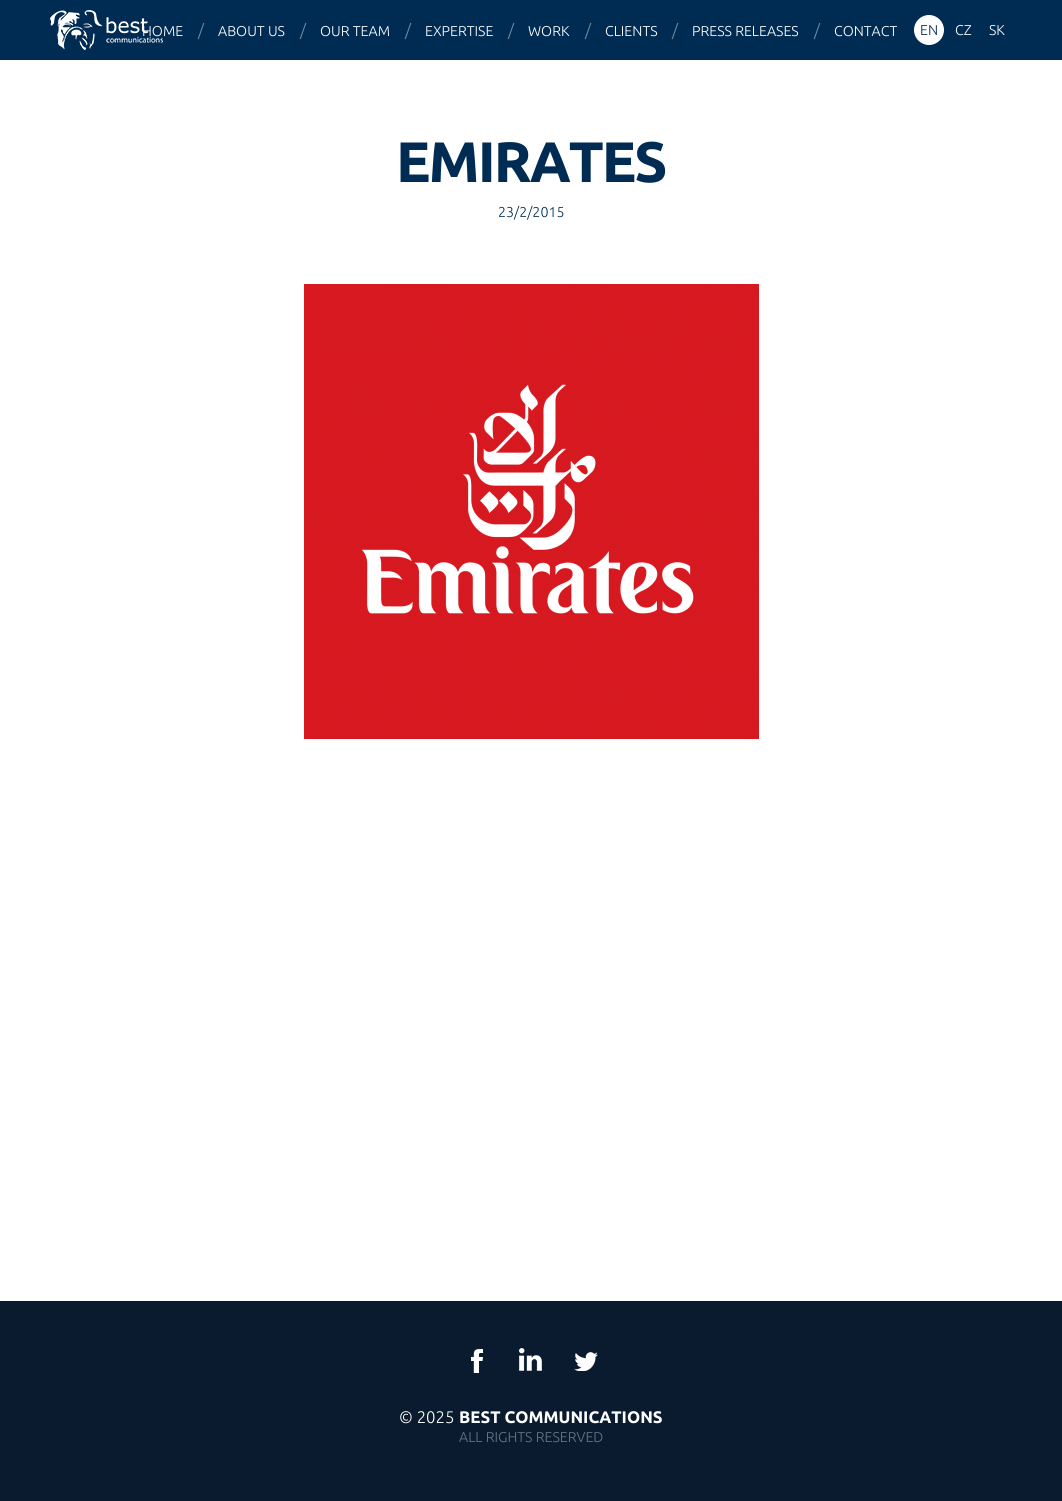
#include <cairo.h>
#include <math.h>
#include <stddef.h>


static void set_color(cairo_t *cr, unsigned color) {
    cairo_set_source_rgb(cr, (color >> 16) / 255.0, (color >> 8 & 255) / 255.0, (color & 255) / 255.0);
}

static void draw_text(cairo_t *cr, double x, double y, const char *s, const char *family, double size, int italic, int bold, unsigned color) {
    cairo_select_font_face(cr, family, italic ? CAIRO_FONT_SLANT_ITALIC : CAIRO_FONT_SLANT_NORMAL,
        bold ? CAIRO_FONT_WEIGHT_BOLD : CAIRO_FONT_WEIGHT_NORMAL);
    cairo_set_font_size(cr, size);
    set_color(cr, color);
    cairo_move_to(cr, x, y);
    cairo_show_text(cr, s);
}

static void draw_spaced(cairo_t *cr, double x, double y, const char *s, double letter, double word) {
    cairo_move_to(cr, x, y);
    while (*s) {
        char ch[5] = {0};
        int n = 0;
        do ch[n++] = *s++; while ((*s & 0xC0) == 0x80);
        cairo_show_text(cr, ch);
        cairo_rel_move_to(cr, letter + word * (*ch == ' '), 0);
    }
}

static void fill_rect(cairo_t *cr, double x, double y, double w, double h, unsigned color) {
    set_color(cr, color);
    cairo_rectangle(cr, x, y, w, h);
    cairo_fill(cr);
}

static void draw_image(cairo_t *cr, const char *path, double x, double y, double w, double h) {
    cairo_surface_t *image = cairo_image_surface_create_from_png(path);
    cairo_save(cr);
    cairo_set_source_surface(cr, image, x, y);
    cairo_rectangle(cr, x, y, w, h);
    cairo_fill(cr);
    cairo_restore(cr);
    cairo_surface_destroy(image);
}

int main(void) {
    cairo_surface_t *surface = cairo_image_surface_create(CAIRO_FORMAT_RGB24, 1062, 1501);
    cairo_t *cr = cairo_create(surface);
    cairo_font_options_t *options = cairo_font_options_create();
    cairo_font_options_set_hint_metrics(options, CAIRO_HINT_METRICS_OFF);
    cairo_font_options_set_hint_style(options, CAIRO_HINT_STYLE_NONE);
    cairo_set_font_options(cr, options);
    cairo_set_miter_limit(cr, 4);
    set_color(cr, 0xFFFFFF);
    cairo_paint(cr);
    fill_rect(cr, 0, 0, 1062, 60, 0x002C53);
    draw_image(cr, "assets/img1.png", 50, 10, 113, 40);
    draw_text(cr, 142, 36, "HOME", "Ubuntu Light", 14.25, 0, 0, 0xFFFFFF);
    draw_text(cr, 198, 36, "/", "Ubuntu Light", 16.75, 0, 0, 0x728DA3);
    draw_text(cr, 218, 36, "ABOUT US", "Ubuntu Light", 14.25, 0, 0, 0xFFFFFF);
    draw_text(cr, 300, 36, "/", "Ubuntu Light", 16.75, 0, 0, 0x728DA3);
    draw_text(cr, 320, 36, "OUR TEAM", "Ubuntu Light", 14.25, 0, 0, 0xFFFFFF);
    draw_text(cr, 405, 36, "/", "Ubuntu Light", 16.75, 0, 0, 0x728DA3);
    draw_text(cr, 425, 36, "EXPERTISE", "Ubuntu Light", 14.25, 0, 0, 0xFFFFFF);
    draw_text(cr, 508, 36, "/", "Ubuntu Light", 16.75, 0, 0, 0x728DA3);
    draw_text(cr, 528, 36, "WORK", "Ubuntu Light", 14.25, 0, 0, 0xFFFFFF);
    draw_text(cr, 585, 36, "/", "Ubuntu Light", 16.75, 0, 0, 0x728DA3);
    draw_text(cr, 605, 36, "CLIENTS", "Ubuntu Light", 14.25, 0, 0, 0xFFFFFF);
    draw_text(cr, 672, 36, "/", "Ubuntu Light", 16.75, 0, 0, 0x728DA3);
    draw_text(cr, 692, 36, "PRESS RELEASES", "Ubuntu Light", 14.25, 0, 0, 0xFFFFFF);
    draw_text(cr, 814, 36, "/", "Ubuntu Light", 16.75, 0, 0, 0x728DA3);
    draw_text(cr, 834, 36, "CONTACT", "Ubuntu Light", 14.25, 0, 0, 0xFFFFFF);
    cairo_new_path(cr);
    cairo_arc(cr, 929, 30, 15, 0, 2 * M_PI);
    cairo_fill(cr);
    draw_text(cr, 920, 35, "EN", "Ubuntu Light", 14.25, 0, 0, 0x002C53);
    draw_text(cr, 955, 35, "CZ", "Ubuntu Light", 14.25, 0, 0, 0xFFFFFF);
    draw_text(cr, 989, 35, "SK", "Ubuntu Light", 14.25, 0, 0, 0xFFFFFF);
    cairo_select_font_face(cr, "Ubuntu", CAIRO_FONT_SLANT_NORMAL, CAIRO_FONT_WEIGHT_BOLD);
    cairo_set_font_size(cr, 57);
    set_color(cr, 0x002C53);
    draw_spaced(cr, 396, 182, "EMIRATES", -2, 0);
    draw_text(cr, 498, 217, "23/2/2015", "Ubuntu Light", 14.25, 0, 0, 0x002C53);
    draw_image(cr, "assets/img2.png", 304, 284, 455, 455);
    fill_rect(cr, 0, 1301, 1062, 200, 0x0A1B30);
    draw_image(cr, "assets/img3.png", 471, 1349, 12, 24);
    draw_image(cr, "assets/img4.png", 519, 1348, 23, 23);
    draw_image(cr, "assets/img5.png", 574, 1352, 24, 19);
    draw_text(cr, 399, 1423, "© 2025", "Ubuntu Light", 16.75, 0, 0, 0xFFFFFF);
    draw_text(cr, 459, 1423, "BEST COMMUNICATIONS", "Ubuntu", 16.75, 0, 1, 0xFFFFFF);
    draw_text(cr, 459, 1442, "ALL RIGHTS RESERVED", "Ubuntu Light", 14.25, 0, 0, 0x697583);
    cairo_surface_write_to_png(surface, "output.png");
    cairo_font_options_destroy(options);
    cairo_destroy(cr);
    cairo_surface_destroy(surface);
    return 0;
}
